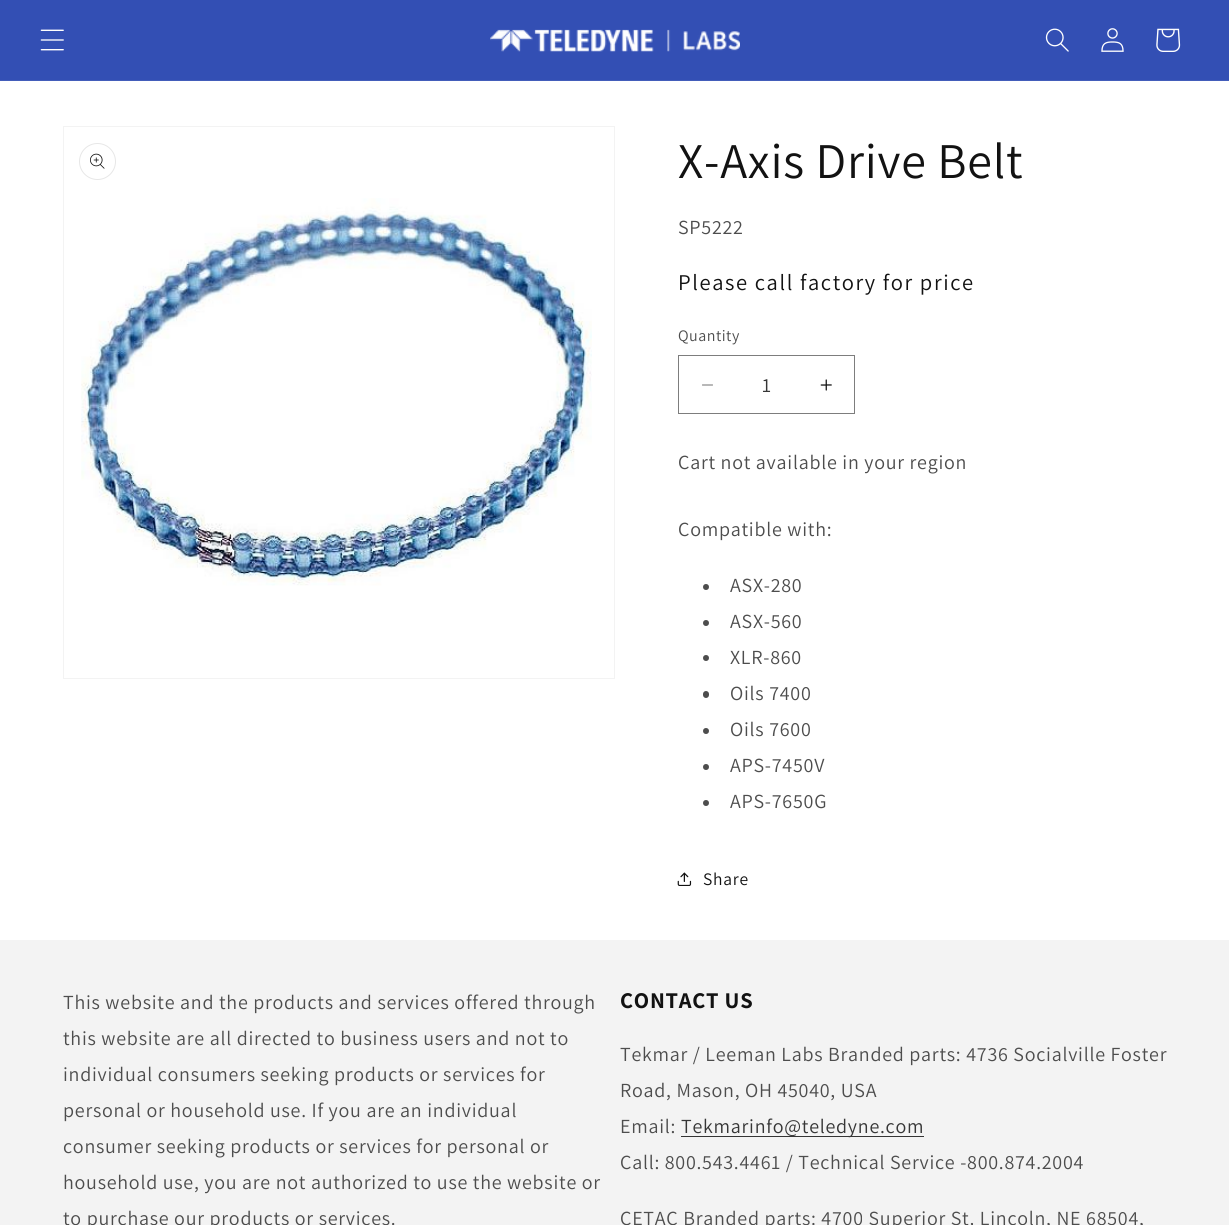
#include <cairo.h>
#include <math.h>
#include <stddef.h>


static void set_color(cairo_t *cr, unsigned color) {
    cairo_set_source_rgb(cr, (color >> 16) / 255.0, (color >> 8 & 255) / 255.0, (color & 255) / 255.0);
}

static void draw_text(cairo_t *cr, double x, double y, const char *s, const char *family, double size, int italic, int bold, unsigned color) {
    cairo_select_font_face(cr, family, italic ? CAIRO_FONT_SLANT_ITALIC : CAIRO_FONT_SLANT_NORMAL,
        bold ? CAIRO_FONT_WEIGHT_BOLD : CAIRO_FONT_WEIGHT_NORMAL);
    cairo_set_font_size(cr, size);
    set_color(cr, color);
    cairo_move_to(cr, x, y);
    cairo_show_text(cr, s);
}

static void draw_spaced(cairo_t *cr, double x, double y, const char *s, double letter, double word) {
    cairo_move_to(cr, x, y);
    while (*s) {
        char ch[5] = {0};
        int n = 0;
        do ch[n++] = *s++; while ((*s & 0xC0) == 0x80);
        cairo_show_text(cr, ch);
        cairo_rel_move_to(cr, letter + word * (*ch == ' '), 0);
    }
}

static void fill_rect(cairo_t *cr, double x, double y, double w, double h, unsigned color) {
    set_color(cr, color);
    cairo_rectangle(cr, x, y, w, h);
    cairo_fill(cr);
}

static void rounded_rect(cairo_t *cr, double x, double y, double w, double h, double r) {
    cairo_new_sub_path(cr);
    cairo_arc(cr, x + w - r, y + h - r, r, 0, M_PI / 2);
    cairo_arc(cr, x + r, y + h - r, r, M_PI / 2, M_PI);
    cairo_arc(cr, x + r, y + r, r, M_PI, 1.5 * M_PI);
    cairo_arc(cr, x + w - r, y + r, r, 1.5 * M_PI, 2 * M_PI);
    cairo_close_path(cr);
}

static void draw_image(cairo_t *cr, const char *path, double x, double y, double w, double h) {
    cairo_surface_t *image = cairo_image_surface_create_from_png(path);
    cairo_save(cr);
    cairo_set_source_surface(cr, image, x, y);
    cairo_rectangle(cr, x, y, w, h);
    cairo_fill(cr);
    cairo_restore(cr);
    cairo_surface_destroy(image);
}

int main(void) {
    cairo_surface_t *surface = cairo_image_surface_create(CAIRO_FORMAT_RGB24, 1229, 1225);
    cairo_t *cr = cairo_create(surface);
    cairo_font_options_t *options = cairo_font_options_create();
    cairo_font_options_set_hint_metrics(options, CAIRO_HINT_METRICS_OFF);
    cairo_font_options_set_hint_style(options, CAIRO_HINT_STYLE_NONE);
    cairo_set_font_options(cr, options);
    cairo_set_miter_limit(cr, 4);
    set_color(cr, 0xFFFFFF);
    cairo_paint(cr);
    fill_rect(cr, 0, 0, 1229, 80, 0x334FB4);
    fill_rect(cr, 0, 80, 1229, 1, 0x435DBA);
    draw_image(cr, "assets/img1.png", 40, 29, 24, 22);
    draw_image(cr, "assets/img2.png", 490, 29, 250, 23);
    draw_image(cr, "assets/img3.png", 1045, 28, 24, 24);
    draw_image(cr, "assets/img4.png", 1101, 28, 23, 24);
    draw_image(cr, "assets/img5.png", 1156, 28, 25, 24);
    cairo_rectangle(cr, 63.5, 126.5, 551, 552);
    set_color(cr, 0xF3F3F3);
    cairo_set_line_width(cr, 1);
    cairo_stroke(cr);
    cairo_arc(cr, 97.5, 161.5, 18, 0, 2 * M_PI);
    set_color(cr, 0xE7E7E7);
    cairo_stroke(cr);
    draw_image(cr, "assets/img6.png", 90, 153, 15, 16);
    draw_image(cr, "assets/img7.png", 81, 198, 511, 388);
    cairo_select_font_face(cr, "Assistant", CAIRO_FONT_SLANT_NORMAL, CAIRO_FONT_WEIGHT_NORMAL);
    cairo_set_font_size(cr, 50);
    set_color(cr, 0x121212);
    draw_spaced(cr, 678, 178, "X-Axis Drive Belt", 0.75, 0);
    cairo_set_font_size(cr, 20);
    set_color(cr, 0x4D4D4D);
    draw_spaced(cr, 678, 234, "SP5222", 0.75, 0);
    cairo_set_font_size(cr, 22.5);
    set_color(cr, 0x121212);
    draw_spaced(cr, 678, 290, "Please call factory for price", 1.6, 0);
    cairo_set_font_size(cr, 16);
    set_color(cr, 0x4D4D4D);
    draw_spaced(cr, 678, 341, "Quantity", 0.5, 0);
    draw_image(cr, "assets/img8.png", 702, 384, 11, 2);
    draw_image(cr, "assets/img9.png", 820, 379, 12, 12);
    cairo_rectangle(cr, 678.5, 355.5, 176, 58);
    set_color(cr, 0x7D7D7D);
    cairo_stroke(cr);
    draw_text(cr, 762, 392, "1", "Assistant", 20, 0, 0, 0x363636);
    set_color(cr, 0x4D4D4D);
    draw_spaced(cr, 678, 469, "Cart not available in your region", 0.75, 0);
    draw_spaced(cr, 678, 536, "Compatible with:", 0.75, 0);
    cairo_new_path(cr);
    cairo_arc(cr, 706, 587, 3, 0, 2 * M_PI);
    cairo_fill(cr);
    draw_spaced(cr, 730, 592, "ASX-280", 0.75, 0);
    cairo_new_path(cr);
    cairo_arc(cr, 706, 623, 3, 0, 2 * M_PI);
    cairo_fill(cr);
    draw_spaced(cr, 730, 628, "ASX-560", 0.75, 0);
    cairo_new_path(cr);
    cairo_arc(cr, 706, 658, 3, 0, 2 * M_PI);
    cairo_fill(cr);
    draw_spaced(cr, 730, 664, "XLR-860", 0.75, 0);
    rounded_rect(cr, 703, 691, 6, 7, 3);
    cairo_fill(cr);
    draw_spaced(cr, 730, 700, "Oils 7400", 0.75, 0);
    cairo_new_path(cr);
    cairo_arc(cr, 706, 731, 3, 0, 2 * M_PI);
    cairo_fill(cr);
    draw_spaced(cr, 730, 736, "Oils 7600", 0.75, 0);
    cairo_new_path(cr);
    cairo_arc(cr, 706, 767, 3, 0, 2 * M_PI);
    cairo_fill(cr);
    draw_spaced(cr, 730, 772, "APS-7450V", 0.75, 0);
    cairo_new_path(cr);
    cairo_arc(cr, 706, 803, 3, 0, 2 * M_PI);
    cairo_fill(cr);
    draw_spaced(cr, 730, 808, "APS-7650G", 0.75, 0);
    draw_image(cr, "assets/img10.png", 677, 872, 15, 14);
    cairo_set_font_size(cr, 17.5);
    set_color(cr, 0x121212);
    draw_spaced(cr, 703, 885, "Share", 0.75, 0);
    fill_rect(cr, 0, 940, 1229, 285, 0xF3F3F3);
    cairo_set_font_size(cr, 20);
    set_color(cr, 0x4D4D4D);
    draw_spaced(cr, 63, 1009, "This website and the products and services offered through", 0.75, 0);
    draw_spaced(cr, 63, 1045, "this website are all directed to business users and not to", 0.75, 0);
    draw_spaced(cr, 63, 1081, "individual consumers seeking products or services for", 0.75, 0);
    draw_spaced(cr, 63, 1117, "personal or household use. If you are an individual", 0.75, 0);
    draw_spaced(cr, 63, 1153, "consumer seeking products or services for personal or", 0.75, 0);
    draw_spaced(cr, 63, 1189, "household use, you are not authorized to use the website or", 0.75, 0);
    draw_spaced(cr, 63, 1225, "to purchase our products or services.", 0.75, 0);
    cairo_select_font_face(cr, "Assistant", CAIRO_FONT_SLANT_NORMAL, CAIRO_FONT_WEIGHT_BOLD);
    cairo_set_font_size(cr, 22.5);
    set_color(cr, 0x121212);
    draw_spaced(cr, 620, 1008, "CONTACT US", 0.75, 0);
    cairo_select_font_face(cr, "Assistant", CAIRO_FONT_SLANT_NORMAL, CAIRO_FONT_WEIGHT_NORMAL);
    cairo_set_font_size(cr, 20);
    set_color(cr, 0x4D4D4D);
    draw_spaced(cr, 620, 1061, "Tekmar / Leeman Labs Branded parts: 4736 Socialville Foster", 0.75, 0);
    draw_spaced(cr, 620, 1097, "Road, Mason, OH 45040, USA", 0.75, 0);
    draw_spaced(cr, 620, 1133, "Email:", 0.75, 0);
    fill_rect(cr, 681, 1136, 243, 1, 0x343434);
    set_color(cr, 0x363636);
    draw_spaced(cr, 681, 1133, "Tekmarinfo@teledyne.com", 0.75, 0);
    set_color(cr, 0x4D4D4D);
    draw_spaced(cr, 620, 1169, "Call: 800.543.4461 / Technical Service -800.874.2004", 0.75, 0);
    draw_spaced(cr, 620, 1225, "CETAC Branded parts: 4700 Superior St, Lincoln, NE 68504,", 0.75, 0);
    cairo_surface_write_to_png(surface, "output.png");
    cairo_font_options_destroy(options);
    cairo_destroy(cr);
    cairo_surface_destroy(surface);
    return 0;
}
